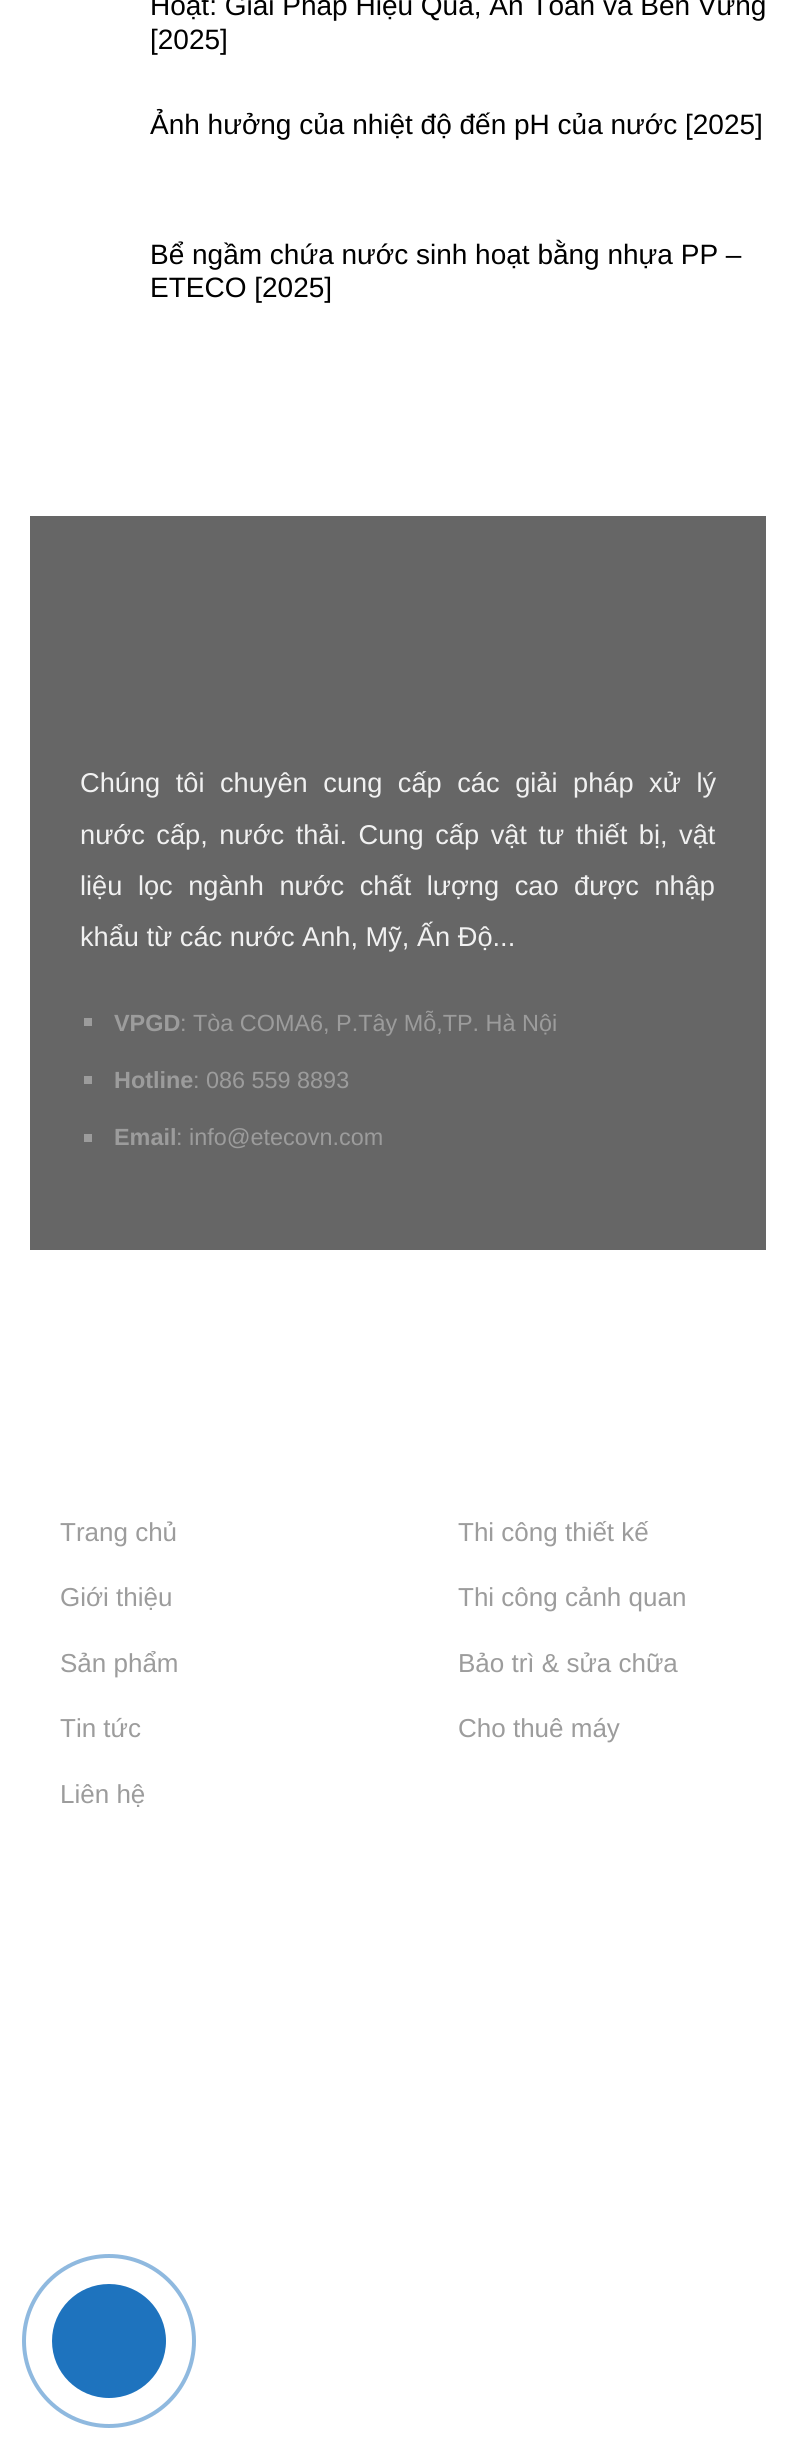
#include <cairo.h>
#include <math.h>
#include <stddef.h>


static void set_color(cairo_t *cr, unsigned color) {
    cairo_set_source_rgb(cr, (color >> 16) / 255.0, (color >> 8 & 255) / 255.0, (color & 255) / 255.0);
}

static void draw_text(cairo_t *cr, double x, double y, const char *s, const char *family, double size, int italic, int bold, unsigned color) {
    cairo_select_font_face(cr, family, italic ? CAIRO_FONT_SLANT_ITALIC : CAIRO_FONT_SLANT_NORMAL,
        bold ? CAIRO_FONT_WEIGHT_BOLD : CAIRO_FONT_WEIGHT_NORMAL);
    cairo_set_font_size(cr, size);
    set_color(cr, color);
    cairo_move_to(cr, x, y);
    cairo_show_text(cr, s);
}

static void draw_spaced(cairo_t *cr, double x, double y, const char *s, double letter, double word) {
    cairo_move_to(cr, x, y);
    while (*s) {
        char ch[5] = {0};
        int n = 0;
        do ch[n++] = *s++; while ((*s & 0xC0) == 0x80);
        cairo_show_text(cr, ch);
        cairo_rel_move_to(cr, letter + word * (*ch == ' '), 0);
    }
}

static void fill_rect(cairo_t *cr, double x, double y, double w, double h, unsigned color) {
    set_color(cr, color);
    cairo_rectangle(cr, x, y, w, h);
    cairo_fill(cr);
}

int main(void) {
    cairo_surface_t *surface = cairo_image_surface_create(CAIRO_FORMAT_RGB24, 795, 2456);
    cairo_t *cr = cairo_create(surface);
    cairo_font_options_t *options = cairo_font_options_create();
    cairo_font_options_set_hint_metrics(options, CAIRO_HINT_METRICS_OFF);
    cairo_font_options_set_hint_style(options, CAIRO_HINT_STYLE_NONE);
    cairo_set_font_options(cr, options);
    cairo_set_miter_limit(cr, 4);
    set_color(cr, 0xFFFFFF);
    cairo_paint(cr);
    draw_text(cr, 150, 15, "Hoạt: Giải Pháp Hiệu Quả, An Toàn và Bền Vững", "Liberation Sans", 28, 0, 0, 0x000000);
    draw_text(cr, 150, 49, "[2025]", "Liberation Sans", 28, 0, 0, 0x000000);
    draw_text(cr, 150, 134, "Ảnh hưởng của nhiệt độ đến pH của nước [2025]", "Liberation Sans", 28, 0, 0, 0x000000);
    draw_text(cr, 150, 264, "Bể ngầm chứa nước sinh hoạt bằng nhựa PP –", "Liberation Sans", 28, 0, 0, 0x000000);
    draw_text(cr, 150, 297, "ETECO [2025]", "Liberation Sans", 28, 0, 0, 0x000000);
    fill_rect(cr, 30, 516, 736, 734, 0x666666);
    cairo_set_font_size(cr, 27.2);
    set_color(cr, 0xF1F1F1);
    draw_spaced(cr, 80, 792, "Chúng tôi chuyên cung cấp các giải pháp xử lý", 0, 8);
    draw_spaced(cr, 80, 844, "nước cấp, nước thải. Cung cấp vật tư thiết bị, vật", 0, 4);
    draw_spaced(cr, 80, 895, "liệu lọc ngành nước chất lượng cao được nhập", 0, 8);
    draw_text(cr, 80, 946, "khẩu từ các nước Anh, Mỹ, Ấn Độ...", "Liberation Sans", 27.2, 0, 0, 0xF1F1F1);
    fill_rect(cr, 84, 1018, 8, 8, 0x9C9C9C);
    draw_text(cr, 114, 1031, "VPGD", "Liberation Sans", 23.4, 0, 1, 0x9C9C9C);
    draw_text(cr, 180, 1031, ": Tòa COMA6, P.Tây Mỗ,TP. Hà Nội", "Liberation Sans", 23.4, 0, 0, 0x9C9C9C);
    fill_rect(cr, 84, 1076, 8, 8, 0x9C9C9C);
    draw_text(cr, 114, 1088, "Hotline", "Liberation Sans", 23.4, 0, 1, 0x9C9C9C);
    draw_text(cr, 193, 1088, ": 086 559 8893", "Liberation Sans", 23.4, 0, 0, 0x9C9C9C);
    fill_rect(cr, 84, 1134, 8, 8, 0x9C9C9C);
    draw_text(cr, 114, 1145, "Email", "Liberation Sans", 23.4, 0, 1, 0x9C9C9C);
    draw_text(cr, 176, 1145, ": info@etecovn.com", "Liberation Sans", 23.4, 0, 0, 0x9C9C9C);
    draw_text(cr, 60, 1541, "Trang chủ", "Liberation Sans", 26, 0, 0, 0x9C9C9C);
    draw_text(cr, 60, 1606, "Giới thiệu", "Liberation Sans", 26, 0, 0, 0x9C9C9C);
    draw_text(cr, 60, 1672, "Sản phẩm", "Liberation Sans", 26, 0, 0, 0x9C9C9C);
    draw_text(cr, 60, 1737, "Tin tức", "Liberation Sans", 26, 0, 0, 0x9C9C9C);
    draw_text(cr, 60, 1803, "Liên hệ", "Liberation Sans", 26, 0, 0, 0x9C9C9C);
    draw_text(cr, 458, 1541, "Thi công thiết kế", "Liberation Sans", 26, 0, 0, 0x9C9C9C);
    draw_text(cr, 458, 1606, "Thi công cảnh quan", "Liberation Sans", 26, 0, 0, 0x9C9C9C);
    draw_text(cr, 458, 1672, "Bảo trì & sửa chữa", "Liberation Sans", 26, 0, 0, 0x9C9C9C);
    draw_text(cr, 458, 1737, "Cho thuê máy", "Liberation Sans", 26, 0, 0, 0x9C9C9C);
    cairo_new_path(cr);
    cairo_arc(cr, 109, 2341, 85, 0, 2 * M_PI);
    set_color(cr, 0x8FB9DF);
    cairo_set_line_width(cr, 4);
    cairo_stroke(cr);
    set_color(cr, 0x1E73BE);
    cairo_arc(cr, 109, 2341, 57, 0, 2 * M_PI);
    cairo_fill(cr);
    cairo_surface_write_to_png(surface, "output.png");
    cairo_font_options_destroy(options);
    cairo_destroy(cr);
    cairo_surface_destroy(surface);
    return 0;
}
